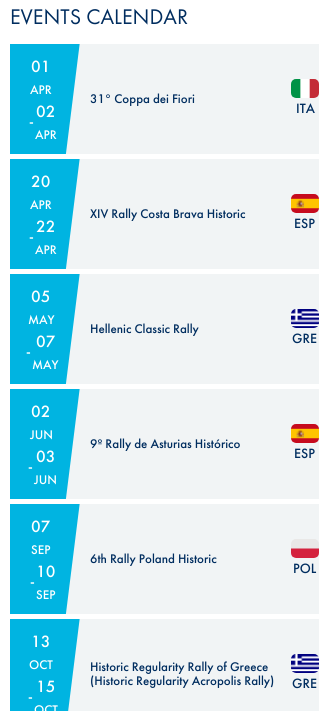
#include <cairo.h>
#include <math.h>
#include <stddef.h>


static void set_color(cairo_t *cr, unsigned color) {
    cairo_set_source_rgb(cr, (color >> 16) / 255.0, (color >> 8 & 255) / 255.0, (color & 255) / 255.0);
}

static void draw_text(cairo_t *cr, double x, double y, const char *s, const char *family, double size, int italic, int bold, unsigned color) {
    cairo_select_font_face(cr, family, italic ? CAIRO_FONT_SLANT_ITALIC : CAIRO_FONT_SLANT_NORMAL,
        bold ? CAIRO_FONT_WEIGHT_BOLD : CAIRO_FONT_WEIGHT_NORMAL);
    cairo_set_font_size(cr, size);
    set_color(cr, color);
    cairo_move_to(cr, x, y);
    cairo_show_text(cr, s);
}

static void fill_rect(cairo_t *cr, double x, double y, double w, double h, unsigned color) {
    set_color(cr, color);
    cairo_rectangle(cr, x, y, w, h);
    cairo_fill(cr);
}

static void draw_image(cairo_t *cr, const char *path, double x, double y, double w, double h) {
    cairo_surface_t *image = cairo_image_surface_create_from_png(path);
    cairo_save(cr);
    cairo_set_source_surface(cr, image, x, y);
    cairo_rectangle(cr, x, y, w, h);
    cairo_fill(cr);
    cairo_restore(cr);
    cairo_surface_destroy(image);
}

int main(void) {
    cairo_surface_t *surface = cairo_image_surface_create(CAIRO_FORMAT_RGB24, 319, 711);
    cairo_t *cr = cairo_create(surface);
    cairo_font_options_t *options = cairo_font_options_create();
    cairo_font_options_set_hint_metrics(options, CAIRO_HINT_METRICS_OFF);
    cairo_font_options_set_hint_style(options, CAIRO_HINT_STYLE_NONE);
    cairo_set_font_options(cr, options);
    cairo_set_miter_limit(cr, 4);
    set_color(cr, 0xFFFFFF);
    cairo_paint(cr);
    draw_text(cr, 10, 24, "EVENTS CALENDAR", "Futura PT", 22, 0, 0, 0x002D5F);
    fill_rect(cr, 65, 44, 254, 110, 0xF1F4F5);
    draw_image(cr, "assets/img1.png", 10, 44, 70, 110);
    draw_text(cr, 31, 72, "01", "Futura PT Medium", 17, 0, 0, 0xFFFFFF);
    draw_text(cr, 30, 94, "APR", "Futura PT Medium", 13, 0, 0, 0xFFFFFF);
    draw_text(cr, 36, 117, "02", "Futura PT Medium", 17, 0, 0, 0xFFFFFF);
    draw_text(cr, 29, 126, "-", "Futura PT Medium", 14, 0, 0, 0xFFFFFF);
    draw_text(cr, 35, 139, "APR", "Futura PT Medium", 13, 0, 0, 0xFFFFFF);
    draw_text(cr, 90, 103, "31° Coppa dei Fiori", "Futura PT Medium", 13, 0, 0, 0x002D5F);
    draw_image(cr, "assets/img2.png", 291, 79, 28, 19);
    draw_text(cr, 296, 113, "ITA", "Futura PT Medium", 14, 0, 0, 0x002D5F);
    fill_rect(cr, 65, 159, 254, 110, 0xF1F4F5);
    draw_image(cr, "assets/img1.png", 10, 159, 70, 110);
    draw_text(cr, 31, 187, "20", "Futura PT Medium", 17, 0, 0, 0xFFFFFF);
    draw_text(cr, 30, 209, "APR", "Futura PT Medium", 13, 0, 0, 0xFFFFFF);
    draw_text(cr, 36, 232, "22", "Futura PT Medium", 17, 0, 0, 0xFFFFFF);
    draw_text(cr, 29, 241, "-", "Futura PT Medium", 14, 0, 0, 0xFFFFFF);
    draw_text(cr, 35, 254, "APR", "Futura PT Medium", 13, 0, 0, 0xFFFFFF);
    draw_text(cr, 90, 218, "XIV Rally Costa Brava Historic", "Futura PT Medium", 13, 0, 0, 0x002D5F);
    draw_image(cr, "assets/img3.png", 291, 194, 28, 19);
    draw_text(cr, 294, 228, "ESP", "Futura PT Medium", 14, 0, 0, 0x002D5F);
    fill_rect(cr, 65, 274, 254, 110, 0xF1F4F5);
    draw_image(cr, "assets/img1.png", 10, 274, 70, 110);
    draw_text(cr, 31, 302, "05", "Futura PT Medium", 17, 0, 0, 0xFFFFFF);
    draw_text(cr, 28, 324, "MAY", "Futura PT Medium", 13, 0, 0, 0xFFFFFF);
    draw_text(cr, 36, 347, "07", "Futura PT Medium", 17, 0, 0, 0xFFFFFF);
    draw_text(cr, 26, 356, "-", "Futura PT Medium", 14, 0, 0, 0xFFFFFF);
    draw_text(cr, 32, 369, "MAY", "Futura PT Medium", 13, 0, 0, 0xFFFFFF);
    draw_text(cr, 90, 333, "Hellenic Classic Rally", "Futura PT Medium", 13, 0, 0, 0x002D5F);
    draw_image(cr, "assets/img4.png", 291, 309, 28, 19);
    draw_text(cr, 292, 343, "GRE", "Futura PT Medium", 14, 0, 0, 0x002D5F);
    fill_rect(cr, 65, 389, 254, 110, 0xF1F4F5);
    draw_image(cr, "assets/img1.png", 10, 389, 70, 110);
    draw_text(cr, 31, 417, "02", "Futura PT Medium", 17, 0, 0, 0xFFFFFF);
    draw_text(cr, 30, 439, "JUN", "Futura PT Medium", 13, 0, 0, 0xFFFFFF);
    draw_text(cr, 36, 462, "03", "Futura PT Medium", 17, 0, 0, 0xFFFFFF);
    draw_text(cr, 28, 471, "-", "Futura PT Medium", 14, 0, 0, 0xFFFFFF);
    draw_text(cr, 34, 484, "JUN", "Futura PT Medium", 13, 0, 0, 0xFFFFFF);
    draw_text(cr, 90, 448, "9º Rally de Asturias Histórico", "Futura PT Medium", 13, 0, 0, 0x002D5F);
    draw_image(cr, "assets/img3.png", 291, 424, 28, 19);
    draw_text(cr, 294, 458, "ESP", "Futura PT Medium", 14, 0, 0, 0x002D5F);
    fill_rect(cr, 65, 504, 254, 110, 0xF1F4F5);
    draw_image(cr, "assets/img1.png", 10, 504, 70, 110);
    draw_text(cr, 31, 532, "07", "Futura PT Medium", 17, 0, 0, 0xFFFFFF);
    draw_text(cr, 31, 554, "SEP", "Futura PT Medium", 13, 0, 0, 0xFFFFFF);
    draw_text(cr, 36, 577, "10", "Futura PT Medium", 17, 0, 0, 0xFFFFFF);
    draw_text(cr, 30, 586, "-", "Futura PT Medium", 14, 0, 0, 0xFFFFFF);
    draw_text(cr, 36, 599, "SEP", "Futura PT Medium", 13, 0, 0, 0xFFFFFF);
    draw_text(cr, 90, 563, "6th Rally Poland Historic", "Futura PT Medium", 13, 0, 0, 0x002D5F);
    draw_image(cr, "assets/img5.png", 291, 539, 28, 19);
    draw_text(cr, 293, 573, "POL", "Futura PT Medium", 14, 0, 0, 0x002D5F);
    fill_rect(cr, 68, 619, 251, 92, 0xF1F4F5);
    draw_image(cr, "assets/img6.png", 10, 619, 70, 92);
    draw_text(cr, 31, 647, "13", "Futura PT Medium", 17, 0, 0, 0xFFFFFF);
    draw_text(cr, 29, 669, "OCT", "Futura PT Medium", 13, 0, 0, 0xFFFFFF);
    draw_text(cr, 36, 692, "15", "Futura PT Medium", 17, 0, 0, 0xFFFFFF);
    draw_text(cr, 28, 701, "-", "Futura PT Medium", 14, 0, 0, 0xFFFFFF);
    draw_text(cr, 34, 714, "OCT", "Futura PT Medium", 13, 0, 0, 0xFFFFFF);
    draw_text(cr, 90, 671, "Historic Regularity Rally of Greece", "Futura PT Medium", 13, 0, 0, 0x002D5F);
    draw_text(cr, 90, 685, "(Historic Regularity Acropolis Rally)", "Futura PT Medium", 13, 0, 0, 0x002D5F);
    draw_image(cr, "assets/img4.png", 291, 654, 28, 19);
    draw_text(cr, 292, 688, "GRE", "Futura PT Medium", 14, 0, 0, 0x002D5F);
    cairo_surface_write_to_png(surface, "output.png");
    cairo_font_options_destroy(options);
    cairo_destroy(cr);
    cairo_surface_destroy(surface);
    return 0;
}
